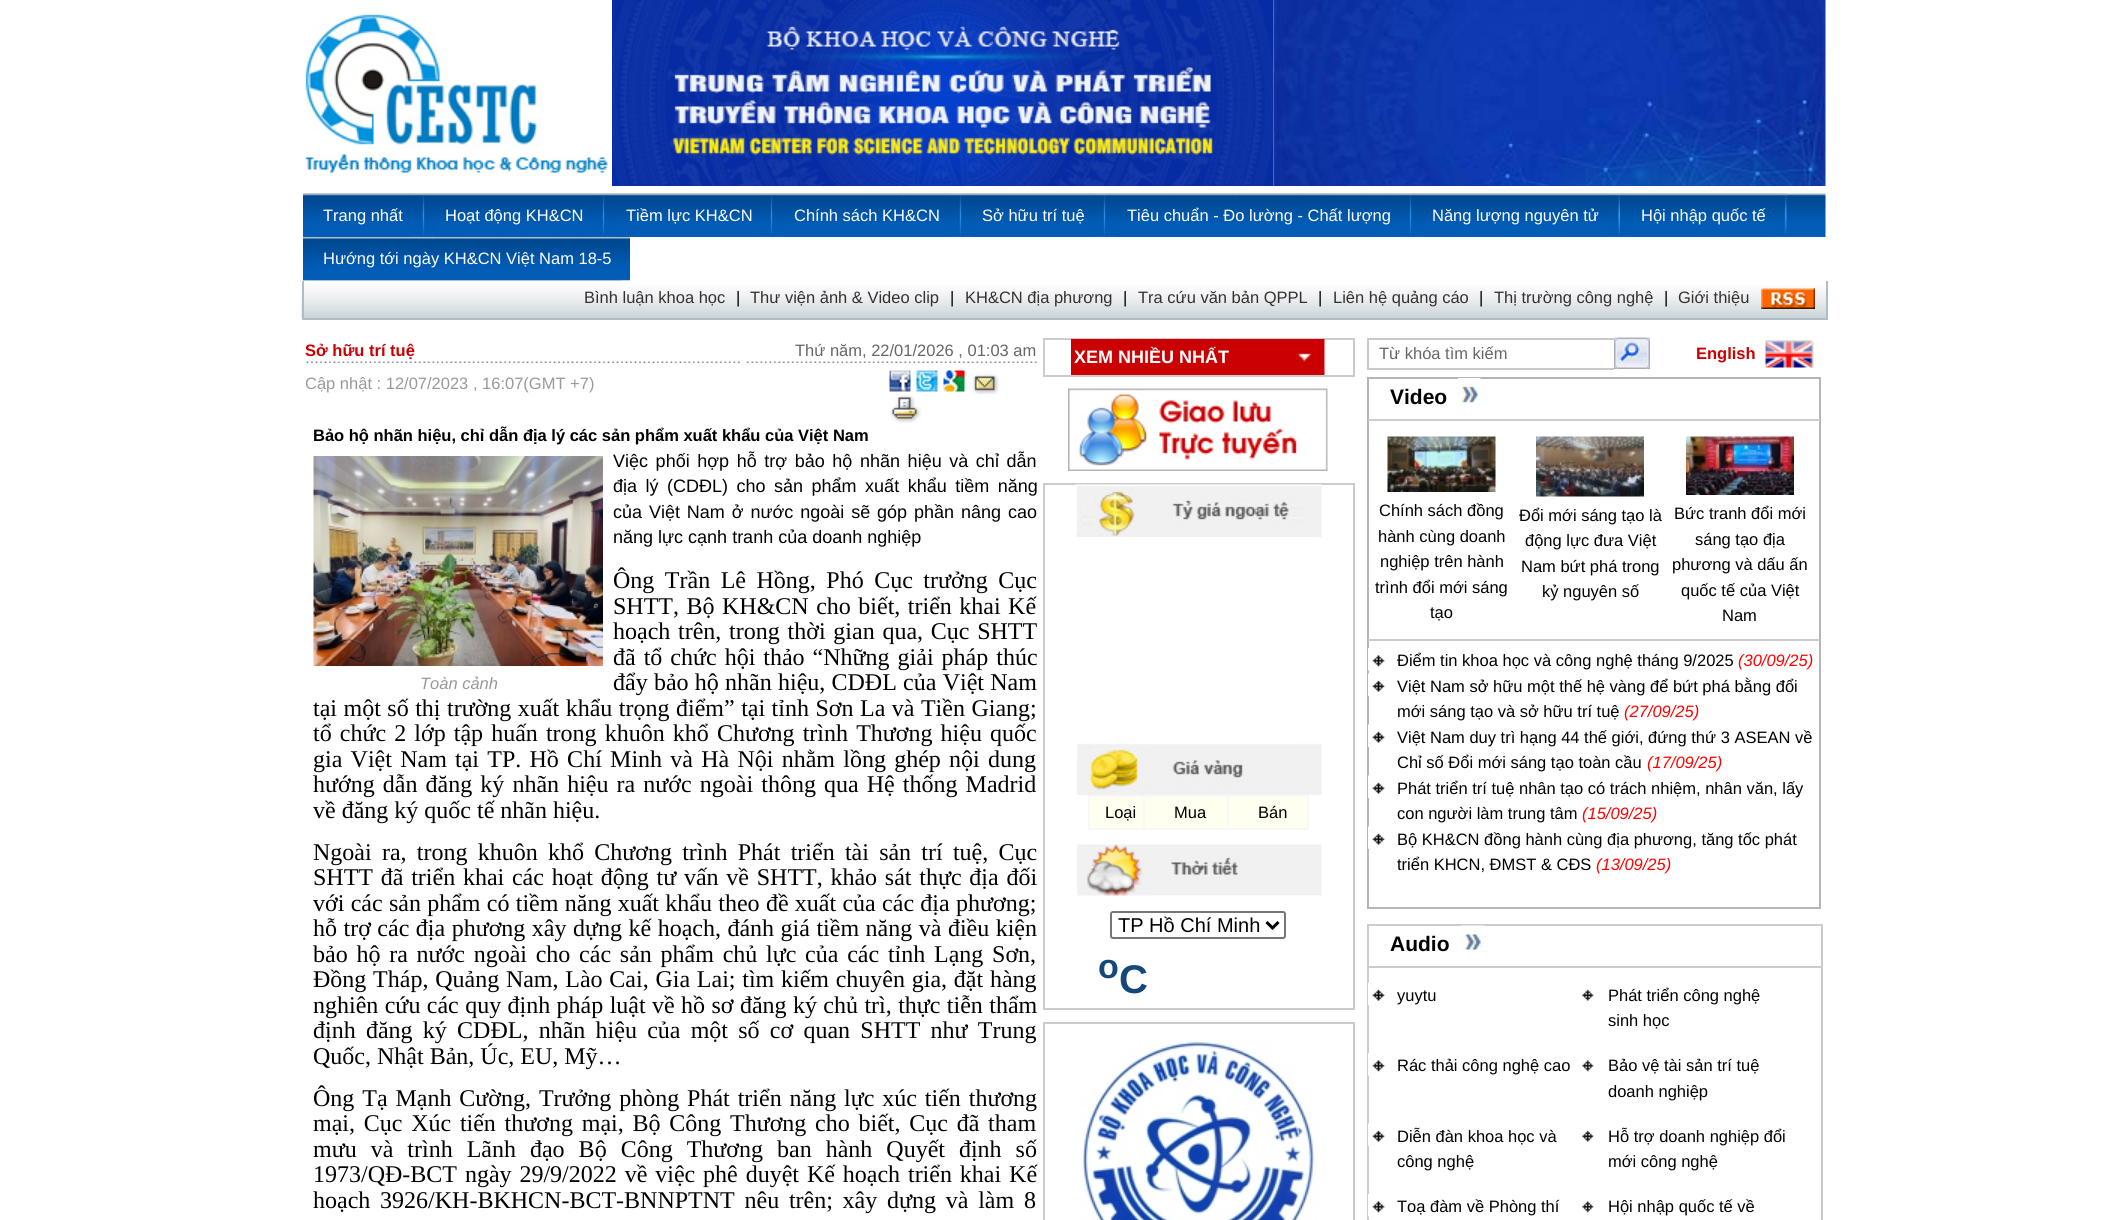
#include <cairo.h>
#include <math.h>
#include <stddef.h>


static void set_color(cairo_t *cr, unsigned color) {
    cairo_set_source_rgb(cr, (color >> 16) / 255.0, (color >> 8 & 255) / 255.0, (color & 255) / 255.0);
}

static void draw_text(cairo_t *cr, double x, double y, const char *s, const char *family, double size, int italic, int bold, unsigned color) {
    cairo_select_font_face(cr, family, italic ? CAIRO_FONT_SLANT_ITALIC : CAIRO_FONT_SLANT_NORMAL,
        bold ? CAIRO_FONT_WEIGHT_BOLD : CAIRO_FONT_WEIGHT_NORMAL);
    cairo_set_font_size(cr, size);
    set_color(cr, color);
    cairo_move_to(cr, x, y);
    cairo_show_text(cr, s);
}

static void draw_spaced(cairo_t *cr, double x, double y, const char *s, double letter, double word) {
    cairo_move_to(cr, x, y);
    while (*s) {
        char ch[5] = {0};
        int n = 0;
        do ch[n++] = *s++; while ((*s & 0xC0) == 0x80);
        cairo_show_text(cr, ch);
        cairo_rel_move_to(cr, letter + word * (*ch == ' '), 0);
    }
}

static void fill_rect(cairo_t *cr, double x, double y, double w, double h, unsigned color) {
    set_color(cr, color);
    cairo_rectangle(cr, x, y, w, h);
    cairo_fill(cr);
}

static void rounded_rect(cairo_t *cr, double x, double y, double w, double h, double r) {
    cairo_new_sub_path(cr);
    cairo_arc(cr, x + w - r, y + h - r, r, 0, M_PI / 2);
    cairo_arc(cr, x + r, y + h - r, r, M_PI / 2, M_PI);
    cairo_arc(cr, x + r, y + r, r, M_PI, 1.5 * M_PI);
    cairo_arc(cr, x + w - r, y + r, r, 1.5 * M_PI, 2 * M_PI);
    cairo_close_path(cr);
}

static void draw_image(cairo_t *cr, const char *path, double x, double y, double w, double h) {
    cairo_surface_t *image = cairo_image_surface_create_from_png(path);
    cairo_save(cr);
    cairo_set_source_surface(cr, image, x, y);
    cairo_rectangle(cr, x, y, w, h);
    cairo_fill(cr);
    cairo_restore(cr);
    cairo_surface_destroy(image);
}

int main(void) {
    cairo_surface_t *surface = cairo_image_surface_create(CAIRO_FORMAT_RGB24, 2127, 1220);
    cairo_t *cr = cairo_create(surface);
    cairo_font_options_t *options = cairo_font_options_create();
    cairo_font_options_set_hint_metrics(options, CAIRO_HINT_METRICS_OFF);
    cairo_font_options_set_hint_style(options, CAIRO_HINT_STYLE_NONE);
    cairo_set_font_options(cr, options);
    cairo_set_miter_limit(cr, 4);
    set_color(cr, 0xFFFFFF);
    cairo_paint(cr);
    draw_image(cr, "assets/img1.png", 305, 14, 303, 163);
    draw_image(cr, "assets/img2.png", 612, 0, 662, 186);
    draw_image(cr, "assets/img3.png", 1273, 0, 553, 186);
    draw_image(cr, "assets/img4.png", 303, 193, 1523, 44);
    draw_image(cr, "assets/img5.png", 303, 193, 119, 44);
    draw_image(cr, "assets/img6.png", 303, 193, 110, 44);
    draw_text(cr, 323, 221, "Trang nhất", "Liberation Sans", 16.5, 0, 0, 0xFFFFFF);
    draw_image(cr, "assets/img7.png", 421, 193, 4, 42);
    draw_image(cr, "assets/img8.png", 424, 193, 178, 44);
    draw_image(cr, "assets/img9.png", 424, 193, 169, 44);
    draw_text(cr, 445, 221, "Hoạt động KH&CN", "Liberation Sans", 16.5, 0, 0, 0xFFFFFF);
    draw_image(cr, "assets/img7.png", 601, 193, 4, 42);
    draw_image(cr, "assets/img10.png", 604, 193, 166, 44);
    draw_image(cr, "assets/img11.png", 604, 193, 157, 44);
    draw_text(cr, 626, 221, "Tiềm lực KH&CN", "Liberation Sans", 16.5, 0, 0, 0xFFFFFF);
    draw_image(cr, "assets/img7.png", 769, 193, 4, 42);
    draw_image(cr, "assets/img12.png", 772, 193, 187, 44);
    draw_image(cr, "assets/img13.png", 772, 193, 178, 44);
    draw_text(cr, 794, 221, "Chính sách KH&CN", "Liberation Sans", 16.5, 0, 0, 0xFFFFFF);
    draw_image(cr, "assets/img7.png", 958, 193, 4, 42);
    draw_image(cr, "assets/img14.png", 961, 193, 142, 44);
    draw_image(cr, "assets/img15.png", 961, 193, 133, 44);
    draw_text(cr, 982, 221, "Sở hữu trí tuệ", "Liberation Sans", 16.5, 0, 0, 0xFFFFFF);
    draw_image(cr, "assets/img7.png", 1102, 193, 4, 42);
    draw_image(cr, "assets/img16.png", 1105, 193, 304, 44);
    draw_image(cr, "assets/img17.png", 1105, 193, 295, 44);
    draw_text(cr, 1127, 221, "Tiêu chuẩn - Đo lường - Chất lượng", "Liberation Sans", 16.5, 0, 0, 0xFFFFFF);
    draw_image(cr, "assets/img7.png", 1408, 193, 4, 42);
    draw_image(cr, "assets/img18.png", 1411, 193, 206, 44);
    draw_image(cr, "assets/img19.png", 1411, 193, 197, 44);
    draw_text(cr, 1432, 221, "Năng lượng nguyên tử", "Liberation Sans", 16.5, 0, 0, 0xFFFFFF);
    draw_image(cr, "assets/img20.png", 1617, 193, 3, 42);
    draw_image(cr, "assets/img21.png", 1620, 193, 164, 44);
    draw_image(cr, "assets/img22.png", 1620, 193, 155, 44);
    draw_text(cr, 1641, 221, "Hội nhập quốc tế", "Liberation Sans", 16.5, 0, 0, 0xFFFFFF);
    draw_image(cr, "assets/img23.png", 1783, 193, 4, 42);
    draw_image(cr, "assets/img24.png", 303, 237, 327, 44);
    draw_image(cr, "assets/img25.png", 303, 238, 318, 43);
    draw_text(cr, 323, 264, "Hướng tới ngày KH&CN Việt Nam 18-5", "Liberation Sans", 16.5, 0, 0, 0xFFFFFF);
    draw_image(cr, "assets/img26.png", 301, 280, 1526, 38);
    fill_rect(cr, 1826, 281, 2, 39, 0xAFBEC3);
    fill_rect(cr, 302, 318, 1525, 2, 0xAFBEC3);
    fill_rect(cr, 302, 281, 2, 39, 0xAFBEC3);
    draw_text(cr, 584, 303, "Bình luận khoa học", "Liberation Sans", 16.5, 0, 0, 0x313131);
    draw_text(cr, 736, 303, "|", "Liberation Sans", 16.5, 0, 0, 0x000000);
    draw_text(cr, 750, 303, "Thư viện ảnh & Video clip", "Liberation Sans", 16.5, 0, 0, 0x313131);
    draw_text(cr, 950, 303, "|", "Liberation Sans", 16.5, 0, 0, 0x000000);
    draw_text(cr, 965, 303, "KH&CN địa phương", "Liberation Sans", 16.5, 0, 0, 0x313131);
    draw_text(cr, 1123, 303, "|", "Liberation Sans", 16.5, 0, 0, 0x000000);
    draw_text(cr, 1138, 303, "Tra cứu văn bản QPPL", "Liberation Sans", 16.5, 0, 0, 0x313131);
    draw_text(cr, 1318, 303, "|", "Liberation Sans", 16.5, 0, 0, 0x000000);
    draw_text(cr, 1333, 303, "Liên hệ quảng cáo", "Liberation Sans", 16.5, 0, 0, 0x313131);
    draw_text(cr, 1479, 303, "|", "Liberation Sans", 16.5, 0, 0, 0x000000);
    draw_text(cr, 1494, 303, "Thị trường công nghệ", "Liberation Sans", 16.5, 0, 0, 0x313131);
    draw_text(cr, 1664, 303, "|", "Liberation Sans", 16.5, 0, 0, 0x000000);
    draw_text(cr, 1678, 303, "Giới thiệu", "Liberation Sans", 16.5, 0, 0, 0x313131);
    draw_image(cr, "assets/img27.png", 1761, 288, 54, 21);
    draw_image(cr, "assets/img28.png", 306, 361, 434, 2);
    draw_text(cr, 305, 356, "Sở hữu trí tuệ", "Liberation Sans", 16.5, 0, 1, 0xCA0002);
    draw_image(cr, "assets/img29.png", 746, 361, 291, 2);
    draw_text(cr, 795, 356, "Thứ năm, 22/01/2026 , 01:03 am", "Liberation Sans", 16.5, 0, 0, 0x666666);
    draw_text(cr, 305, 389, "Cập nhật : 12/07/2023 , 16:07(GMT +7)", "Liberation Sans", 16.5, 0, 0, 0x999999);
    draw_image(cr, "assets/img30.png", 889, 370, 22, 22);
    draw_image(cr, "assets/img31.png", 916, 370, 22, 22);
    draw_image(cr, "assets/img32.png", 943, 370, 22, 22);
    draw_image(cr, "assets/img33.png", 970, 370, 29, 25);
    draw_image(cr, "assets/img34.png", 889, 394, 33, 29);
    draw_text(cr, 313, 441, "Bảo hộ nhãn hiệu, chỉ dẫn địa lý các sản phẩm xuất khẩu của Việt Nam", "Liberation Sans", 16.5, 0, 1, 0x000000);
    cairo_select_font_face(cr, "Liberation Sans", CAIRO_FONT_SLANT_NORMAL, CAIRO_FONT_WEIGHT_NORMAL);
    cairo_set_font_size(cr, 18);
    draw_spaced(cr, 613, 467, "Việc phối hợp hỗ trợ bảo hộ nhãn hiệu và chỉ dẫn", 0, 2.6);
    draw_spaced(cr, 613, 492, "địa lý (CDĐL) cho sản phẩm xuất khẩu tiềm năng", 0, 3.5);
    draw_spaced(cr, 613, 518, "của Việt Nam ở nước ngoài sẽ góp phần nâng cao", 0, 1.9);
    draw_text(cr, 613, 543, "năng lực cạnh tranh của doanh nghiệp", "Liberation Sans", 18, 0, 0, 0x000000);
    cairo_select_font_face(cr, "Liberation Serif", CAIRO_FONT_SLANT_NORMAL, CAIRO_FONT_WEIGHT_NORMAL);
    cairo_set_font_size(cr, 24);
    draw_spaced(cr, 613, 588, "Ông Trần Lê Hồng, Phó Cục trưởng Cục", 0, 4.5);
    draw_spaced(cr, 613, 614, "SHTT, Bộ KH&CN cho biết, triển khai Kế", 0, 1.5);
    draw_spaced(cr, 613, 639, "hoạch trên, trong thời gian qua, Cục SHTT", 0, 1.75);
    draw_spaced(cr, 613, 665, "đã tổ chức hội thảo “Những giải pháp thúc", 0, 2);
    draw_spaced(cr, 613, 690, "đẩy bảo hộ nhãn hiệu, CDĐL của Việt Nam", 0, 0.25);
    draw_spaced(cr, 313, 716, "tại một số thị trường xuất khẩu trọng điểm” tại tỉnh Sơn La và Tiền Giang;", 0, 0.5);
    draw_spaced(cr, 313, 741, "tổ chức 2 lớp tập huấn trong khuôn khổ Chương trình Thương hiệu quốc", 0, 2.1);
    draw_spaced(cr, 313, 767, "gia Việt Nam tại TP. Hồ Chí Minh và Hà Nội nhằm lồng ghép nội dung", 0, 2.25);
    draw_spaced(cr, 313, 792, "hướng dẫn đăng ký nhãn hiệu ra nước ngoài thông qua Hệ thống Madrid", 0, 2.1);
    draw_text(cr, 313, 818, "về đăng ký quốc tế nhãn hiệu.", "Liberation Serif", 24, 0, 0, 0x000000);
    draw_spaced(cr, 313, 860, "Ngoài ra, trong khuôn khổ Chương trình Phát triển tài sản trí tuệ, Cục", 0, 4.25);
    draw_spaced(cr, 313, 885, "SHTT đã triển khai các hoạt động tư vấn về SHTT, khảo sát thực địa đối", 0, 1.75);
    draw_spaced(cr, 313, 911, "với các sản phẩm có tiềm năng xuất khẩu theo đề xuất của các địa phương;", 0, 0.3);
    draw_spaced(cr, 313, 936, "hỗ trợ các địa phương xây dựng kế hoạch, đánh giá tiềm năng và điều kiện", 0, 0.5);
    draw_spaced(cr, 313, 962, "bảo hộ ra nước ngoài cho các sản phẩm chủ lực của các tỉnh Lạng Sơn,", 0, 2.75);
    draw_spaced(cr, 313, 987, "Đồng Tháp, Quảng Nam, Lào Cai, Gia Lai; tìm kiếm chuyên gia, đặt hàng", 0, 0.75);
    draw_spaced(cr, 313, 1013, "nghiên cứu các quy định pháp luật về hồ sơ đăng ký chủ trì, thực tiễn thẩm", 0, 0.4);
    draw_spaced(cr, 313, 1038, "định đăng ký CDĐL, nhãn hiệu của một số cơ quan SHTT như Trung", 0, 4.25);
    draw_text(cr, 313, 1064, "Quốc, Nhật Bản, Úc, EU, Mỹ…", "Liberation Serif", 24, 0, 0, 0x000000);
    draw_spaced(cr, 313, 1106, "Ông Tạ Mạnh Cường, Trưởng phòng Phát triển năng lực xúc tiến thương", 0, 1.9);
    draw_spaced(cr, 313, 1131, "mại, Cục Xúc tiến thương mại, Bộ Công Thương cho biết, Cục đã tham", 0, 2.75);
    draw_spaced(cr, 313, 1157, "mưu và trình Lãnh đạo Bộ Công Thương ban hành Quyết định số", 0, 8);
    draw_spaced(cr, 313, 1182, "1973/QĐ-BCT ngày 29/9/2022 về việc phê duyệt Kế hoạch triển khai Kế", 0, 1.9);
    draw_spaced(cr, 313, 1208, "hoạch 3926/KH-BKHCN-BCT-BNNPTNT nêu trên; xây dựng và làm 8", 0, 3.75);
    draw_image(cr, "assets/img35.png", 313, 456, 290, 210);
    draw_text(cr, 420, 689, "Toàn cảnh", "Liberation Sans", 16.5, 1, 0, 0x999999);
    cairo_rectangle(cr, 1044, 339, 310, 37);
    set_color(cr, 0xCCCCCC);
    cairo_stroke(cr);
    draw_image(cr, "assets/img36.png", 1071, 339, 254, 36);
    draw_text(cr, 1074, 363, "XEM NHIỀU NHẤT", "Liberation Sans", 18, 0, 1, 0xFFFFFF);
    draw_image(cr, "assets/img37.png", 1068, 388, 260, 83);
    cairo_rectangle(cr, 1044, 484, 310, 525);
    set_color(cr, 0xCCCCCC);
    cairo_stroke(cr);
    draw_image(cr, "assets/img38.png", 1075, 484, 247, 53);
    draw_image(cr, "assets/img39.png", 1077, 743, 245, 52);
    fill_rect(cr, 1090, 797, 217, 31, 0xFFFFF0);
    fill_rect(cr, 1088, 795, 220, 2, 0xF8F8F8);
    fill_rect(cr, 1307, 795, 2, 35, 0xF8F8F8);
    fill_rect(cr, 1088, 828, 220, 2, 0xF8F8F8);
    fill_rect(cr, 1088, 795, 2, 35, 0xF8F8F8);
    draw_text(cr, 1105, 818, "Loại", "Liberation Sans", 16.5, 0, 0, 0x000000);
    fill_rect(cr, 1143, 795, 2, 35, 0xF8F8F8);
    draw_text(cr, 1174, 818, "Mua", "Liberation Sans", 16.5, 0, 0, 0x000000);
    fill_rect(cr, 1227, 795, 2, 35, 0xF8F8F8);
    draw_text(cr, 1258, 818, "Bán", "Liberation Sans", 16.5, 0, 0, 0x000000);
    draw_image(cr, "assets/img40.png", 1077, 844, 245, 52);
    rounded_rect(cr, 1111, 912, 174, 26, 2);
    set_color(cr, 0x767676);
    cairo_stroke(cr);
    cairo_new_path(cr);
    cairo_move_to(cr, 1266.5, 922);
    cairo_line_to(cr, 1272.5, 928);
    cairo_line_to(cr, 1278.5, 922);
    set_color(cr, 0x000000);
    cairo_set_line_width(cr, 3);
    cairo_stroke(cr);
    draw_text(cr, 1118, 932, "TP Hồ Chí Minh", "Liberation Sans", 20, 0, 0, 0x000000);
    draw_text(cr, 1098, 978, "o", "Liberation Sans", 34, 0, 1, 0x144878);
    draw_text(cr, 1119, 993, "C", "Liberation Sans", 40, 0, 1, 0x144878);
    cairo_rectangle(cr, 1044, 1023, 310, 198);
    set_color(cr, 0xCCCCCC);
    cairo_set_line_width(cr, 2);
    cairo_stroke(cr);
    draw_image(cr, "assets/img41.png", 1080, 1038, 238, 182);
    fill_rect(cr, 1367, 338, 247, 2, 0xC9C9C9);
    fill_rect(cr, 1367, 368, 247, 2, 0xC9C9C9);
    fill_rect(cr, 1367, 338, 2, 31, 0xC9C9C9);
    draw_text(cr, 1379, 359, "Từ khóa tìm kiếm", "Liberation Sans", 16.5, 0, 0, 0x666666);
    draw_image(cr, "assets/img42.png", 1614, 337, 36, 32);
    draw_text(cr, 1696, 359, "English", "Liberation Sans", 16.5, 0, 1, 0xCA0002);
    draw_image(cr, "assets/img43.png", 1765, 340, 49, 28);
    cairo_rectangle(cr, 1368, 378, 452, 530);
    set_color(cr, 0xB5B5B5);
    cairo_stroke(cr);
    fill_rect(cr, 1368, 419, 452, 2, 0xCCCCCC);
    draw_text(cr, 1390, 404, "Video", "Liberation Sans", 21, 0, 1, 0x000000);
    draw_image(cr, "assets/img44.png", 1458, 378, 23, 25);
    draw_image(cr, "assets/img45.png", 1387, 436, 109, 56);
    draw_text(cr, 1379, 516, "Chính sách đồng", "Liberation Sans", 16.5, 0, 0, 0x000000);
    draw_text(cr, 1378, 542, "hành cùng doanh", "Liberation Sans", 16.5, 0, 0, 0x000000);
    draw_text(cr, 1380, 567, "nghiệp trên hành", "Liberation Sans", 16.5, 0, 0, 0x000000);
    draw_text(cr, 1375, 593, "trình đổi mới sáng", "Liberation Sans", 16.5, 0, 0, 0x000000);
    draw_text(cr, 1430, 618, "tạo", "Liberation Sans", 16.5, 0, 0, 0x000000);
    draw_image(cr, "assets/img46.png", 1536, 436, 108, 61);
    draw_text(cr, 1519, 521, "Đổi mới sáng tạo là", "Liberation Sans", 16.5, 0, 0, 0x000000);
    draw_text(cr, 1525, 546, "động lực đưa Việt", "Liberation Sans", 16.5, 0, 0, 0x000000);
    draw_text(cr, 1521, 572, "Nam bứt phá trong", "Liberation Sans", 16.5, 0, 0, 0x000000);
    draw_text(cr, 1542, 597, "kỷ nguyên số", "Liberation Sans", 16.5, 0, 0, 0x000000);
    draw_image(cr, "assets/img47.png", 1686, 436, 108, 59);
    draw_text(cr, 1674, 519, "Bức tranh đổi mới", "Liberation Sans", 16.5, 0, 0, 0x000000);
    draw_text(cr, 1695, 545, "sáng tạo địa", "Liberation Sans", 16.5, 0, 0, 0x000000);
    draw_text(cr, 1672, 570, "phương và dấu ấn", "Liberation Sans", 16.5, 0, 0, 0x000000);
    draw_text(cr, 1681, 596, "quốc tế của Việt", "Liberation Sans", 16.5, 0, 0, 0x000000);
    draw_text(cr, 1722, 621, "Nam", "Liberation Sans", 16.5, 0, 0, 0x000000);
    fill_rect(cr, 1368, 639, 452, 2, 0xCCCCCC);
    draw_image(cr, "assets/img48.png", 1368, 648, 17, 23);
    draw_text(cr, 1397, 666, "Điểm tin khoa học và công nghệ tháng 9/2025", "Liberation Sans", 16.5, 0, 0, 0x000000);
    draw_text(cr, 1738, 666, "(30/09/25)", "Liberation Sans", 16.5, 1, 0, 0xFF0000);
    draw_image(cr, "assets/img49.png", 1368, 673, 17, 23);
    draw_text(cr, 1397, 692, "Việt Nam sở hữu một thế hệ vàng để bứt phá bằng đổi", "Liberation Sans", 16.5, 0, 0, 0x000000);
    draw_text(cr, 1397, 717, "mới sáng tạo và sở hữu trí tuệ", "Liberation Sans", 16.5, 0, 0, 0x000000);
    draw_text(cr, 1624, 717, "(27/09/25)", "Liberation Sans", 16.5, 1, 0, 0xFF0000);
    draw_image(cr, "assets/img49.png", 1368, 724, 17, 23);
    draw_text(cr, 1397, 743, "Việt Nam duy trì hạng 44 thế giới, đứng thứ 3 ASEAN về", "Liberation Sans", 16.5, 0, 0, 0x000000);
    draw_text(cr, 1397, 768, "Chỉ số Đổi mới sáng tạo toàn cầu", "Liberation Sans", 16.5, 0, 0, 0x000000);
    draw_text(cr, 1647, 768, "(17/09/25)", "Liberation Sans", 16.5, 1, 0, 0xFF0000);
    draw_image(cr, "assets/img49.png", 1368, 775, 17, 23);
    draw_text(cr, 1397, 794, "Phát triển trí tuệ nhân tạo có trách nhiệm, nhân văn, lấy", "Liberation Sans", 16.5, 0, 0, 0x000000);
    draw_text(cr, 1397, 819, "con người làm trung tâm", "Liberation Sans", 16.5, 0, 0, 0x000000);
    draw_text(cr, 1582, 819, "(15/09/25)", "Liberation Sans", 16.5, 1, 0, 0xFF0000);
    draw_image(cr, "assets/img49.png", 1368, 826, 17, 23);
    draw_text(cr, 1397, 845, "Bộ KH&CN đồng hành cùng địa phương, tăng tốc phát", "Liberation Sans", 16.5, 0, 0, 0x000000);
    draw_text(cr, 1397, 870, "triển KHCN, ĐMST & CĐS", "Liberation Sans", 16.5, 0, 0, 0x000000);
    draw_text(cr, 1596, 870, "(13/09/25)", "Liberation Sans", 16.5, 1, 0, 0xFF0000);
    cairo_rectangle(cr, 1368, 925, 454, 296);
    set_color(cr, 0xCCCCCC);
    cairo_stroke(cr);
    fill_rect(cr, 1368, 966, 453, 2, 0xCCCCCC);
    draw_text(cr, 1390, 951, "Audio", "Liberation Sans", 21, 0, 1, 0x000000);
    draw_image(cr, "assets/img50.png", 1461, 925, 23, 25);
    draw_image(cr, "assets/img51.png", 1368, 982, 17, 23);
    draw_text(cr, 1397, 1001, "yuytu", "Liberation Sans", 16.5, 0, 0, 0x000000);
    draw_image(cr, "assets/img52.png", 1582, 989, 12, 12);
    draw_text(cr, 1608, 1001, "Phát triển công nghệ", "Liberation Sans", 16.5, 0, 0, 0x000000);
    draw_text(cr, 1608, 1026, "sinh học", "Liberation Sans", 16.5, 0, 0, 0x000000);
    draw_image(cr, "assets/img53.png", 1368, 1053, 17, 23);
    draw_text(cr, 1397, 1071, "Rác thải công nghệ cao", "Liberation Sans", 16.5, 0, 0, 0x000000);
    draw_image(cr, "assets/img54.png", 1582, 1060, 12, 12);
    draw_text(cr, 1608, 1071, "Bảo vệ tài sản trí tuệ", "Liberation Sans", 16.5, 0, 0, 0x000000);
    draw_text(cr, 1608, 1097, "doanh nghiệp", "Liberation Sans", 16.5, 0, 0, 0x000000);
    draw_image(cr, "assets/img51.png", 1368, 1123, 17, 23);
    draw_text(cr, 1397, 1142, "Diễn đàn khoa học và", "Liberation Sans", 16.5, 0, 0, 0x000000);
    draw_text(cr, 1397, 1167, "công nghệ", "Liberation Sans", 16.5, 0, 0, 0x000000);
    draw_image(cr, "assets/img52.png", 1582, 1130, 12, 12);
    draw_text(cr, 1608, 1142, "Hỗ trợ doanh nghiệp đổi", "Liberation Sans", 16.5, 0, 0, 0x000000);
    draw_text(cr, 1608, 1167, "mới công nghệ", "Liberation Sans", 16.5, 0, 0, 0x000000);
    draw_image(cr, "assets/img53.png", 1368, 1194, 17, 23);
    draw_text(cr, 1397, 1212, "Toạ đàm về Phòng thí", "Liberation Sans", 16.5, 0, 0, 0x000000);
    draw_image(cr, "assets/img54.png", 1582, 1201, 12, 12);
    draw_text(cr, 1608, 1212, "Hội nhập quốc tế về", "Liberation Sans", 16.5, 0, 0, 0x000000);
    cairo_surface_write_to_png(surface, "output.png");
    cairo_font_options_destroy(options);
    cairo_destroy(cr);
    cairo_surface_destroy(surface);
    return 0;
}
